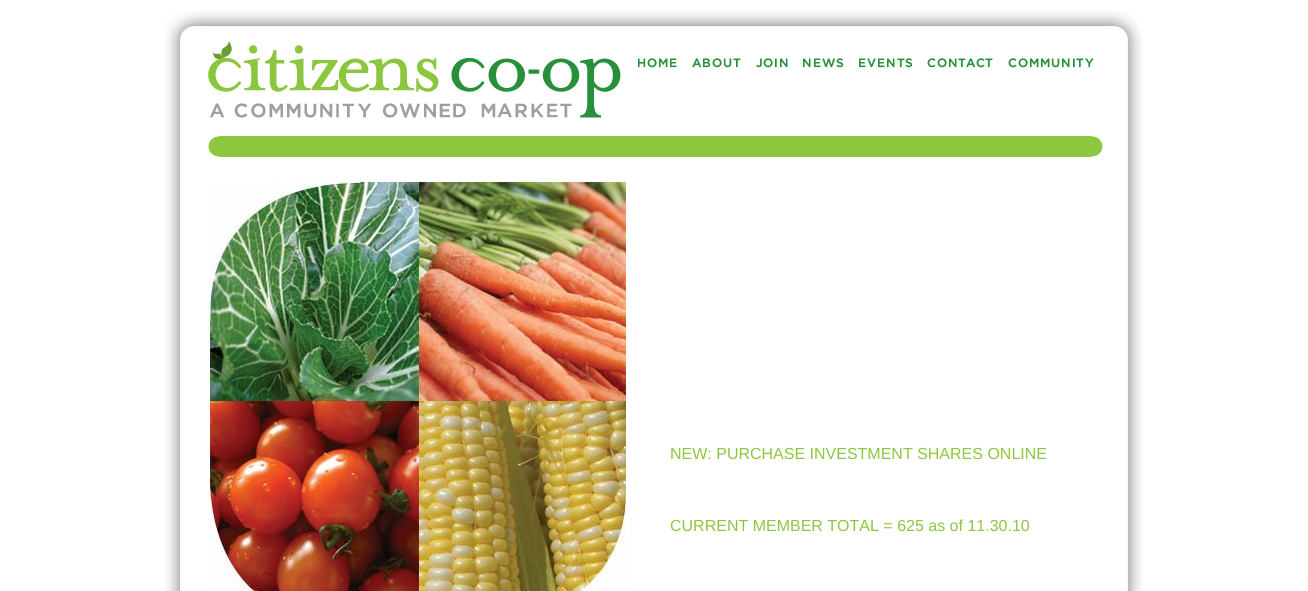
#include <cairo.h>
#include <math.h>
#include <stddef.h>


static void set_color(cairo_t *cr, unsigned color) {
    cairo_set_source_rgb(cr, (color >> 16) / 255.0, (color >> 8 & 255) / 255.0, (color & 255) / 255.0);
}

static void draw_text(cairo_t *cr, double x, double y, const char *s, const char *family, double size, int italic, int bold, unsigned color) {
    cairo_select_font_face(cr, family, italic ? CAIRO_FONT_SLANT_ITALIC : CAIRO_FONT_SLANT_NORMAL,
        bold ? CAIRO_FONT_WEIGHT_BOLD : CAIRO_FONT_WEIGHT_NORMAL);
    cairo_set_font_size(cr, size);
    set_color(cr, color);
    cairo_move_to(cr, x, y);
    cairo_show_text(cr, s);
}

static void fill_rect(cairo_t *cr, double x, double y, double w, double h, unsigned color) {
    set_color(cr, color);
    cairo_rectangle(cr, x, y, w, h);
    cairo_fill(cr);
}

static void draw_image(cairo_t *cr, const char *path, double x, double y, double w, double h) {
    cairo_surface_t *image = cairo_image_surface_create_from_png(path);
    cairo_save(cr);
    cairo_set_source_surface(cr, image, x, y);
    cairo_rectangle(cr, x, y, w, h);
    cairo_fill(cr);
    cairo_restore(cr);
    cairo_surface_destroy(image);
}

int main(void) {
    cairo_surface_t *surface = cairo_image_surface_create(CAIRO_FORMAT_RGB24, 1308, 591);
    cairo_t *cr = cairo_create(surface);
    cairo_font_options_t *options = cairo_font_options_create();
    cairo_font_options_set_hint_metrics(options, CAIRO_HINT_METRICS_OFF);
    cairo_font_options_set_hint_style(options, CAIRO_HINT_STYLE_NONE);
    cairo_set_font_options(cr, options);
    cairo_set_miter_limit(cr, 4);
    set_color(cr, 0xFFFFFF);
    cairo_paint(cr);
    draw_image(cr, "assets/img1.png", 165, 11, 978, 30);
    draw_image(cr, "assets/img2.png", 165, 41, 978, 550);
    draw_image(cr, "assets/img3.png", 208, 41, 413, 77);
    draw_image(cr, "assets/img4.png", 638, 58, 39, 10);
    draw_image(cr, "assets/img5.png", 692, 58, 49, 10);
    draw_image(cr, "assets/img6.png", 756, 58, 32, 10);
    draw_image(cr, "assets/img7.png", 803, 58, 41, 10);
    draw_image(cr, "assets/img8.png", 859, 58, 53, 10);
    draw_image(cr, "assets/img9.png", 927, 58, 66, 10);
    draw_image(cr, "assets/img10.png", 1008, 58, 86, 10);
    draw_image(cr, "assets/img11.png", 208, 136, 11, 21);
    fill_rect(cr, 219, 136, 873, 21, 0x8DC63F);
    draw_image(cr, "assets/img12.png", 1092, 136, 11, 21);
    draw_image(cr, "assets/img13.png", 210, 182, 416, 409);
    draw_text(cr, 670, 459, "NEW: PURCHASE INVESTMENT SHARES ONLINE", "Liberation Sans", 16, 0, 0, 0x8DC63F);
    draw_text(cr, 670, 531, "CURRENT MEMBER TOTAL = 625 as of 11.30.10", "Liberation Sans", 16, 0, 0, 0x8DC63F);
    cairo_surface_write_to_png(surface, "output.png");
    cairo_font_options_destroy(options);
    cairo_destroy(cr);
    cairo_surface_destroy(surface);
    return 0;
}
